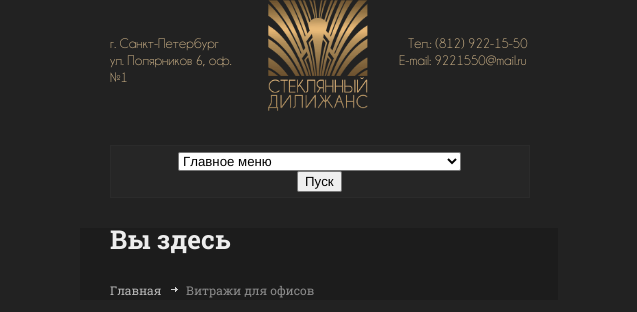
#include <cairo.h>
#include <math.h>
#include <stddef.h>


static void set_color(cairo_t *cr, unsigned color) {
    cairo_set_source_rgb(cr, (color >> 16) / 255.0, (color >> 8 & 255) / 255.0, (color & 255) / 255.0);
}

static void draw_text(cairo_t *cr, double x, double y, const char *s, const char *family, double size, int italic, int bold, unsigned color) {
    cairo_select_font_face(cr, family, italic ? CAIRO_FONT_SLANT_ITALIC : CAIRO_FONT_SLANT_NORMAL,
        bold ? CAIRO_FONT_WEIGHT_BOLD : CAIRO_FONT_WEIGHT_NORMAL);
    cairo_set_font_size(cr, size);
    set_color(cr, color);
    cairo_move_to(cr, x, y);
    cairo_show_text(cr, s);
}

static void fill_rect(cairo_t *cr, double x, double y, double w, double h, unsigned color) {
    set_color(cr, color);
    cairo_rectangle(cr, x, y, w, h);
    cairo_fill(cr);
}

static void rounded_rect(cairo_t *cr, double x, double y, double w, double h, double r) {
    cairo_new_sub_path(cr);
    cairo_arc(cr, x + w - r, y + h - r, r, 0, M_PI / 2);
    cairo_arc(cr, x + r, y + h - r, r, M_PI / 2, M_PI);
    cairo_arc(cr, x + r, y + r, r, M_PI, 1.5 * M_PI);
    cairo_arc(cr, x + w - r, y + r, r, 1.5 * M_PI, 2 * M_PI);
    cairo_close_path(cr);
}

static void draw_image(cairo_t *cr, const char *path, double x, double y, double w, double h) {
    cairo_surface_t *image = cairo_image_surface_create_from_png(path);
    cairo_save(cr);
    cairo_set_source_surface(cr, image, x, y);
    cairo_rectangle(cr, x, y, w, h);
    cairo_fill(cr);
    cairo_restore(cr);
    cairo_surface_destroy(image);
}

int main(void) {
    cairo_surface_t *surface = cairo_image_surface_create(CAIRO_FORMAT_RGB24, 637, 312);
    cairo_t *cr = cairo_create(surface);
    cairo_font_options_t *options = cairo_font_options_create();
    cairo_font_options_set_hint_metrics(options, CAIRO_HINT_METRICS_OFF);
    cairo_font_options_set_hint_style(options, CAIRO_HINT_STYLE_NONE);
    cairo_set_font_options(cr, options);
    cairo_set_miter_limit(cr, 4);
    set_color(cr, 0x222222);
    cairo_paint(cr);
    draw_text(cr, 110, 48, "г. Санкт-Петербург", "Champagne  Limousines", 14, 0, 0, 0xCDB287);
    draw_text(cr, 110, 65, "ул. Полярников 6, оф.", "Champagne  Limousines", 14, 0, 0, 0xCDB287);
    draw_text(cr, 110, 82, "№1", "Champagne  Limousines", 14, 0, 0, 0xCDB287);
    draw_image(cr, "assets/img1.png", 268, 0, 100, 111);
    draw_text(cr, 408, 48, "Тел.: (812) 922-15-50", "Champagne  Limousines", 14, 0, 0, 0xCDB287);
    draw_text(cr, 399, 65, "E-mail: 9221550@mail.ru", "Champagne  Limousines", 14, 0, 0, 0xCDB287);
    set_color(cr, 0x262626);
    cairo_rectangle(cr, 110.5, 145.5, 419, 52);
    cairo_fill_preserve(cr);
    set_color(cr, 0x2B2B2B);
    cairo_set_line_width(cr, 1);
    cairo_stroke(cr);
    set_color(cr, 0xFFFFFF);
    rounded_rect(cr, 178.5, 152.5, 282, 18, 1.5);
    cairo_fill_preserve(cr);
    set_color(cr, 0x767676);
    cairo_stroke(cr);
    cairo_new_path(cr);
    cairo_move_to(cr, 448, 159);
    cairo_line_to(cr, 452, 163);
    cairo_line_to(cr, 456, 159);
    set_color(cr, 0x000000);
    cairo_set_line_width(cr, 2);
    cairo_stroke(cr);
    draw_text(cr, 183, 166, "Главное меню", "Liberation Sans", 13.25, 0, 0, 0x000000);
    set_color(cr, 0xEFEFEF);
    rounded_rect(cr, 297.5, 171.5, 44, 20, 1.5);
    cairo_fill_preserve(cr);
    set_color(cr, 0x767676);
    cairo_set_line_width(cr, 1);
    cairo_stroke(cr);
    draw_text(cr, 305, 186, "Пуск", "Liberation Sans", 13.25, 0, 0, 0x000000);
    fill_rect(cr, 80, 228, 478, 72, 0x1C1C1C);
    draw_text(cr, 110, 249, "Вы здесь", "Roboto Slab", 26, 0, 1, 0xEDEDED);
    draw_text(cr, 110, 295, "Главная", "Roboto Slab", 12, 0, 0, 0xB7B7B7);
    draw_image(cr, "assets/img2.png", 171, 287, 7, 5);
    draw_text(cr, 186, 295, "Витражи для офисов", "Roboto Slab", 12, 0, 0, 0x8A8A8A);
    cairo_surface_write_to_png(surface, "output.png");
    cairo_font_options_destroy(options);
    cairo_destroy(cr);
    cairo_surface_destroy(surface);
    return 0;
}
